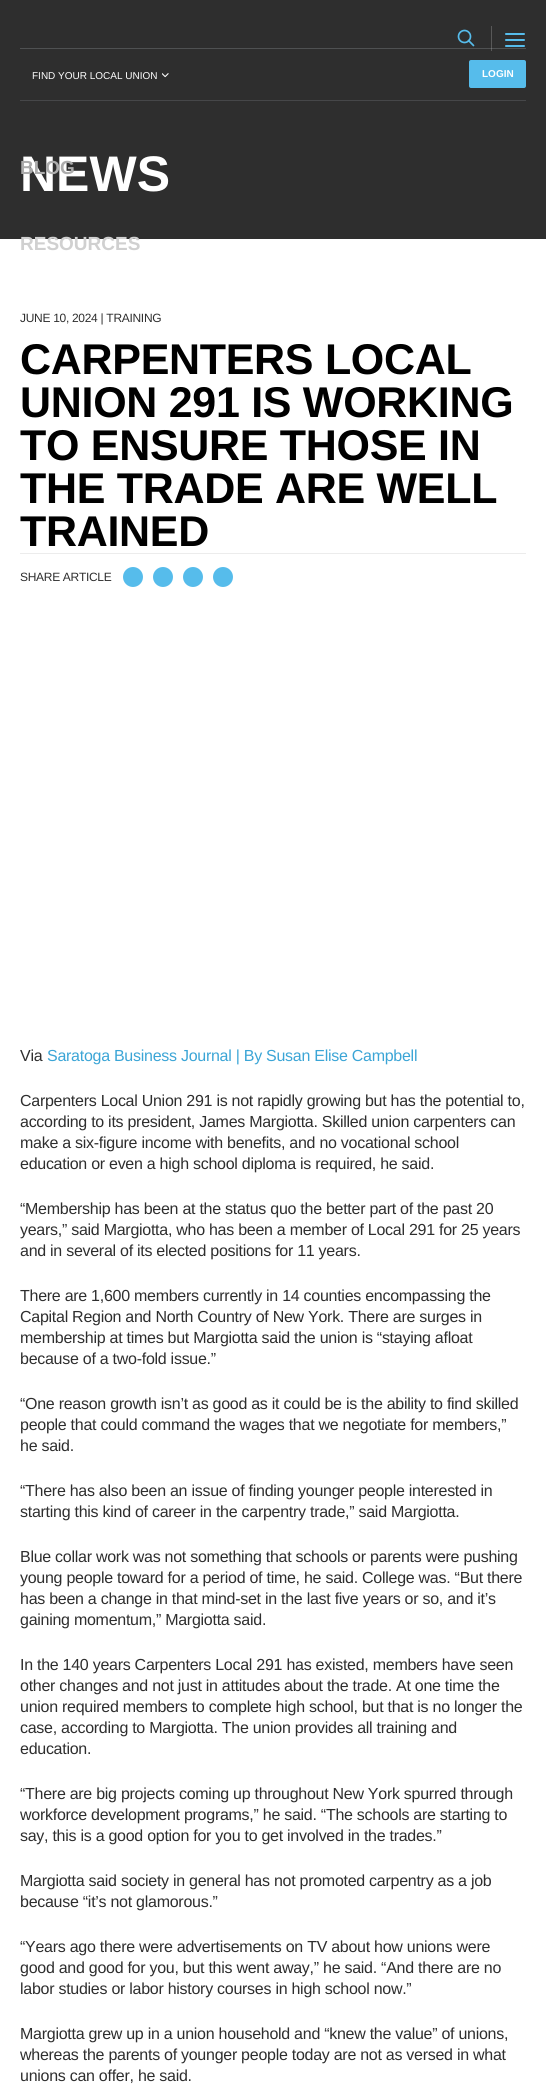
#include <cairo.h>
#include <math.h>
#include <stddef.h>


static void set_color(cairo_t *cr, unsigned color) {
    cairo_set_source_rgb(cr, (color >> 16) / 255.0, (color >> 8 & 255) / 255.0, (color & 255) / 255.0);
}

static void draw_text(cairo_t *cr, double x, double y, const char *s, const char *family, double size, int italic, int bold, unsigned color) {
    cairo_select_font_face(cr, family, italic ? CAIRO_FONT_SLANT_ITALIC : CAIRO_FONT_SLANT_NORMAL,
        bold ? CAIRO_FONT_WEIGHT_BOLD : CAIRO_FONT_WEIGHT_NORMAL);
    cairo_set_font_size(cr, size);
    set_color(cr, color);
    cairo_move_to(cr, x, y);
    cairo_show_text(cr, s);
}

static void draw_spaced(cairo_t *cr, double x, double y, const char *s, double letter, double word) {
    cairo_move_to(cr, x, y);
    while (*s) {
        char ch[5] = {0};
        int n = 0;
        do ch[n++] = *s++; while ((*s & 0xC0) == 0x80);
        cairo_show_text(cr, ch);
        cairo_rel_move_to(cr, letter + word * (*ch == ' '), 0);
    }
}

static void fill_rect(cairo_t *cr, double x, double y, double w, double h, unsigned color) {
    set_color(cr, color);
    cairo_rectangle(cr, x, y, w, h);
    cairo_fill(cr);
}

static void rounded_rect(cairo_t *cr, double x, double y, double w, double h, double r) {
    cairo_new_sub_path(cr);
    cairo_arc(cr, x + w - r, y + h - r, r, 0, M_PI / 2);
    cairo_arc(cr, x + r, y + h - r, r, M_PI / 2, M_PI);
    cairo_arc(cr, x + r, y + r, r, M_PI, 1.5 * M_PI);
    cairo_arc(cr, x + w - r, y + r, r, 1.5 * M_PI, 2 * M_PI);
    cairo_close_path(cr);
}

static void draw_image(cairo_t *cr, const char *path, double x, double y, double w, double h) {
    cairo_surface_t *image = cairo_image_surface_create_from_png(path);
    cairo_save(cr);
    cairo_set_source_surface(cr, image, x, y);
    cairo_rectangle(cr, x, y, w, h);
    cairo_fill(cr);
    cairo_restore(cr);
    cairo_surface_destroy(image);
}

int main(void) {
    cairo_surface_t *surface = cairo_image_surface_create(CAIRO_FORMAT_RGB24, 546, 2092);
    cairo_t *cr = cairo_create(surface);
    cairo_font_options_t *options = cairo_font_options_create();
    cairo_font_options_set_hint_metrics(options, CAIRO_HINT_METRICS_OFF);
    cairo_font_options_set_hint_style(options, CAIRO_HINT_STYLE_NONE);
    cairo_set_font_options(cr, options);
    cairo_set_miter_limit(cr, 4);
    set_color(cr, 0xFFFFFF);
    cairo_paint(cr);
    fill_rect(cr, 0, 0, 546, 239, 0x2E2E2E);
    fill_rect(cr, 20, 48, 506, 1, 0x4F5152);
    fill_rect(cr, 491, 26, 1, 25, 0x585858);
    fill_rect(cr, 491, 48, 1, 1, 0x707274);
    cairo_arc(cr, 464.5, 36.5, 6, 0, 2 * M_PI);
    set_color(cr, 0x56BCEB);
    cairo_set_line_width(cr, 1.7);
    cairo_stroke(cr);
    cairo_new_path(cr);
    cairo_move_to(cr, 473.5, 45.5);
    cairo_line_to(cr, 468.5, 40.5);
    cairo_set_line_cap(cr, CAIRO_LINE_CAP_ROUND);
    cairo_set_line_join(cr, CAIRO_LINE_JOIN_ROUND);
    cairo_stroke(cr);
    rounded_rect(cr, 505, 39, 20, 2, 1);
    cairo_fill(cr);
    rounded_rect(cr, 505, 33, 20, 2, 1);
    cairo_fill(cr);
    rounded_rect(cr, 505, 45, 20, 2, 1);
    cairo_fill(cr);
    draw_text(cr, 32, 79, "FIND YOUR LOCAL UNION", "Liberation Sans", 10, 0, 0, 0xFFFFFF);
    draw_image(cr, "assets/img1.png", 162, 73, 7, 5);
    set_color(cr, 0x56BCEB);
    rounded_rect(cr, 469, 60, 57, 28, 2);
    cairo_fill(cr);
    draw_text(cr, 482, 77, "LOGIN", "Liberation Sans", 10, 0, 1, 0xFFFFFF);
    draw_text(cr, 20, 191, "NEWS", "Liberation Sans", 50, 0, 1, 0xFFFFFF);
    draw_text(cr, 20, 174, "BLOG", "Liberation Sans", 19, 0, 1, 0xACACAC);
    draw_text(cr, 20, 250, "RESOURCES", "Liberation Sans", 19, 0, 1, 0xD0D0D0);
    fill_rect(cr, 20, 100, 506, 1, 0x464749);
    cairo_select_font_face(cr, "Liberation Sans", CAIRO_FONT_SLANT_NORMAL, CAIRO_FONT_WEIGHT_NORMAL);
    cairo_set_font_size(cr, 12);
    set_color(cr, 0x2E2E2E);
    draw_spaced(cr, 20, 322, "JUNE 10, 2024 | TRAINING", -0.3, 0);
    cairo_select_font_face(cr, "Liberation Sans", CAIRO_FONT_SLANT_NORMAL, CAIRO_FONT_WEIGHT_BOLD);
    cairo_set_font_size(cr, 43);
    set_color(cr, 0x000000);
    draw_spaced(cr, 20, 374, "CARPENTERS LOCAL", -0.3, 0);
    draw_spaced(cr, 20, 417, "UNION 291 IS WORKING", -0.3, 0);
    draw_spaced(cr, 20, 460, "TO ENSURE THOSE IN", -0.3, 0);
    draw_spaced(cr, 20, 503, "THE TRADE ARE WELL", -0.3, 0);
    draw_spaced(cr, 20, 546, "TRAINED", -0.3, 0);
    fill_rect(cr, 20, 553, 506, 1, 0xECECEC);
    cairo_select_font_face(cr, "Liberation Sans", CAIRO_FONT_SLANT_NORMAL, CAIRO_FONT_WEIGHT_NORMAL);
    cairo_set_font_size(cr, 12);
    set_color(cr, 0x2E2E2E);
    draw_spaced(cr, 20, 581, "SHARE ARTICLE", -0.3, 0);
    set_color(cr, 0x56BCEB);
    cairo_new_path(cr);
    cairo_arc(cr, 133, 577, 10, 0, 2 * M_PI);
    cairo_fill(cr);
    cairo_arc(cr, 163, 577, 10, 0, 2 * M_PI);
    cairo_fill(cr);
    cairo_arc(cr, 193, 577, 10, 0, 2 * M_PI);
    cairo_fill(cr);
    cairo_arc(cr, 223, 577, 10, 0, 2 * M_PI);
    cairo_fill(cr);
    cairo_set_font_size(cr, 16);
    set_color(cr, 0x2E2E2E);
    draw_spaced(cr, 20, 1061, "Via", -0.27, 0);
    set_color(cr, 0x3BA5D6);
    draw_spaced(cr, 47, 1061, "Saratoga Business Journal | By Susan Elise Campbell", -0.27, 0);
    set_color(cr, 0x2E2E2E);
    draw_spaced(cr, 20, 1106, "Carpenters Local Union 291 is not rapidly growing but has the potential to,", -0.27, 0);
    draw_spaced(cr, 20, 1127, "according to its president, James Margiotta. Skilled union carpenters can", -0.27, 0);
    draw_spaced(cr, 20, 1148, "make a six-figure income with benefits, and no vocational school", -0.27, 0);
    draw_spaced(cr, 20, 1169, "education or even a high school diploma is required, he said.", -0.27, 0);
    draw_spaced(cr, 20, 1214, "“Membership has been at the status quo the better part of the past 20", -0.27, 0);
    draw_spaced(cr, 20, 1235, "years,” said Margiotta, who has been a member of Local 291 for 25 years", -0.27, 0);
    draw_spaced(cr, 20, 1256, "and in several of its elected positions for 11 years.", -0.27, 0);
    draw_spaced(cr, 20, 1301, "There are 1,600 members currently in 14 counties encompassing the", -0.27, 0);
    draw_spaced(cr, 20, 1322, "Capital Region and North Country of New York. There are surges in", -0.27, 0);
    draw_spaced(cr, 20, 1343, "membership at times but Margiotta said the union is “staying afloat", -0.27, 0);
    draw_spaced(cr, 20, 1364, "because of a two-fold issue.”", -0.27, 0);
    draw_spaced(cr, 20, 1409, "“One reason growth isn’t as good as it could be is the ability to find skilled", -0.27, 0);
    draw_spaced(cr, 20, 1430, "people that could command the wages that we negotiate for members,”", -0.27, 0);
    draw_spaced(cr, 20, 1451, "he said.", -0.27, 0);
    draw_spaced(cr, 20, 1496, "“There has also been an issue of finding younger people interested in", -0.27, 0);
    draw_spaced(cr, 20, 1517, "starting this kind of career in the carpentry trade,” said Margiotta.", -0.27, 0);
    draw_spaced(cr, 20, 1562, "Blue collar work was not something that schools or parents were pushing", -0.27, 0);
    draw_spaced(cr, 20, 1583, "young people toward for a period of time, he said. College was. “But there", -0.27, 0);
    draw_spaced(cr, 20, 1604, "has been a change in that mind-set in the last five years or so, and it’s", -0.27, 0);
    draw_spaced(cr, 20, 1625, "gaining momentum,” Margiotta said.", -0.27, 0);
    draw_spaced(cr, 20, 1670, "In the 140 years Carpenters Local 291 has existed, members have seen", -0.27, 0);
    draw_spaced(cr, 20, 1691, "other changes and not just in attitudes about the trade. At one time the", -0.27, 0);
    draw_spaced(cr, 20, 1712, "union required members to complete high school, but that is no longer the", -0.27, 0);
    draw_spaced(cr, 20, 1733, "case, according to Margiotta. The union provides all training and", -0.27, 0);
    draw_spaced(cr, 20, 1754, "education.", -0.27, 0);
    draw_spaced(cr, 20, 1799, "“There are big projects coming up throughout New York spurred through", -0.27, 0);
    draw_spaced(cr, 20, 1820, "workforce development programs,” he said. “The schools are starting to", -0.27, 0);
    draw_spaced(cr, 20, 1841, "say, this is a good option for you to get involved in the trades.”", -0.27, 0);
    draw_spaced(cr, 20, 1886, "Margiotta said society in general has not promoted carpentry as a job", -0.27, 0);
    draw_spaced(cr, 20, 1907, "because “it’s not glamorous.”", -0.27, 0);
    draw_spaced(cr, 20, 1952, "“Years ago there were advertisements on TV about how unions were", -0.27, 0);
    draw_spaced(cr, 20, 1973, "good and good for you, but this went away,” he said. “And there are no", -0.27, 0);
    draw_spaced(cr, 20, 1994, "labor studies or labor history courses in high school now.”", -0.27, 0);
    draw_spaced(cr, 20, 2039, "Margiotta grew up in a union household and “knew the value” of unions,", -0.27, 0);
    draw_spaced(cr, 20, 2060, "whereas the parents of younger people today are not as versed in what", -0.27, 0);
    draw_spaced(cr, 20, 2081, "unions can offer, he said.", -0.27, 0);
    cairo_surface_write_to_png(surface, "output.png");
    cairo_font_options_destroy(options);
    cairo_destroy(cr);
    cairo_surface_destroy(surface);
    return 0;
}
